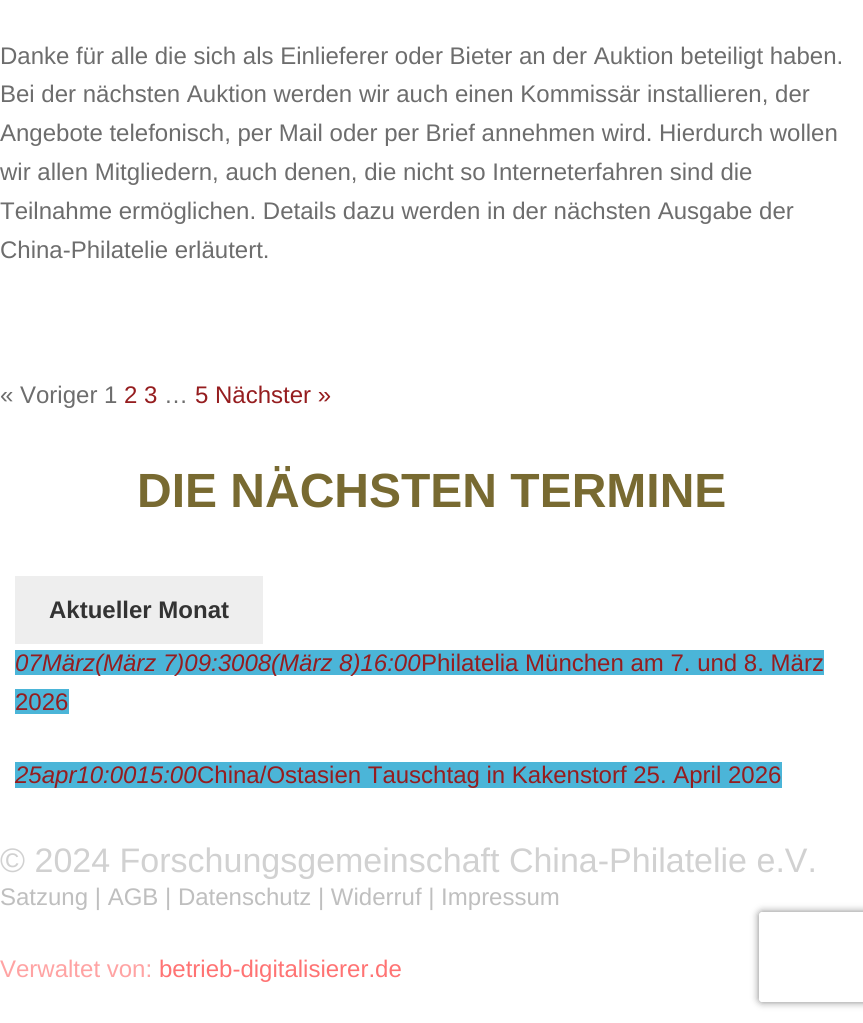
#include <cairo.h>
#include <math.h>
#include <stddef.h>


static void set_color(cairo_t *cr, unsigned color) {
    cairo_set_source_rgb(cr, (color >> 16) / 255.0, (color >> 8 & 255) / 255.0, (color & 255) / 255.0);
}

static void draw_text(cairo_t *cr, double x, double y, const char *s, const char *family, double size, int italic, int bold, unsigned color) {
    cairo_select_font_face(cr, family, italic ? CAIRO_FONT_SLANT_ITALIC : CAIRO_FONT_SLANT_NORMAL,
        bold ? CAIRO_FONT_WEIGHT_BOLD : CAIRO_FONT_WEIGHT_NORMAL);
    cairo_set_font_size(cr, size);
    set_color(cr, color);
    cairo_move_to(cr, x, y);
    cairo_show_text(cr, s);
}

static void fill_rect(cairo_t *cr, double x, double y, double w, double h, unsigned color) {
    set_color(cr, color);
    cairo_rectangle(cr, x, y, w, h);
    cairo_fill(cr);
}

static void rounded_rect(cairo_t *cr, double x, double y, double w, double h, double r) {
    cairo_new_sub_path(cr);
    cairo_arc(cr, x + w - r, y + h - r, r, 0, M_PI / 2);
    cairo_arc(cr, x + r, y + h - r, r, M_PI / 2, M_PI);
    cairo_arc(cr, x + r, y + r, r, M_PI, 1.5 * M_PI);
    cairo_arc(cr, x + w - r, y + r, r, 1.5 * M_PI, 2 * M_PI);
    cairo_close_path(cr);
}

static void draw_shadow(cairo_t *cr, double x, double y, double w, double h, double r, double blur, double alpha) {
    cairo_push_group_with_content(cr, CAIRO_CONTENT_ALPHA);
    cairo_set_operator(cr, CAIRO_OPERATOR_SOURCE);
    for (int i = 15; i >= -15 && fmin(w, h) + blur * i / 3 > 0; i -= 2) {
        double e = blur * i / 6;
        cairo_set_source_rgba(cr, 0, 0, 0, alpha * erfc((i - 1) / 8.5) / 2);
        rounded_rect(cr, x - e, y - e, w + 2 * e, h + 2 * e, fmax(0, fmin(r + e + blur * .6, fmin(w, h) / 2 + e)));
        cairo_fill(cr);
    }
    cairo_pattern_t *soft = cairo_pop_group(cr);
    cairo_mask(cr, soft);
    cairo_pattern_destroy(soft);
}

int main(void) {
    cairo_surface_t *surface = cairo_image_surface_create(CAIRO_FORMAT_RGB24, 863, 1023);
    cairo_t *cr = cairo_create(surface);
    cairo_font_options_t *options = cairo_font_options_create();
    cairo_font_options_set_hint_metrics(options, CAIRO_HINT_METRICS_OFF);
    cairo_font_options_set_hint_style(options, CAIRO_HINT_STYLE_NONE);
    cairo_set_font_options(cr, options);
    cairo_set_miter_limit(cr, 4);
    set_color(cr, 0xFFFFFF);
    cairo_paint(cr);
    draw_text(cr, 0, 64, "Danke für alle die sich als Einlieferer oder Bieter an der Auktion beteiligt haben.", "Liberation Sans", 24, 0, 0, 0x6D6D6D);
    draw_text(cr, 0, 102, "Bei der nächsten Auktion werden wir auch einen Kommissär installieren, der", "Liberation Sans", 24, 0, 0, 0x6D6D6D);
    draw_text(cr, 0, 141, "Angebote telefonisch, per Mail oder per Brief annehmen wird. Hierdurch wollen", "Liberation Sans", 24, 0, 0, 0x6D6D6D);
    draw_text(cr, 0, 180, "wir allen Mitgliedern, auch denen, die nicht so Interneterfahren sind die", "Liberation Sans", 24, 0, 0, 0x6D6D6D);
    draw_text(cr, 0, 219, "Teilnahme ermöglichen. Details dazu werden in der nächsten Ausgabe der", "Liberation Sans", 24, 0, 0, 0x6D6D6D);
    draw_text(cr, 0, 258, "China-Philatelie erläutert.", "Liberation Sans", 24, 0, 0, 0x6D6D6D);
    draw_text(cr, 0, 403, "« Voriger 1", "Liberation Sans", 24, 0, 0, 0x6D6D6D);
    draw_text(cr, 124, 403, "2 3", "Liberation Sans", 24, 0, 0, 0x951D1F);
    draw_text(cr, 164, 403, "…", "Liberation Sans", 24, 0, 0, 0x6D6D6D);
    draw_text(cr, 195, 403, "5 Nächster »", "Liberation Sans", 24, 0, 0, 0x951D1F);
    draw_text(cr, 137, 507, "DIE NÄCHSTEN TERMINE", "Liberation Sans", 48, 0, 1, 0x786A31);
    fill_rect(cr, 15, 576, 248, 68, 0xEEEEEE);
    draw_text(cr, 49, 618, "Aktueller Monat", "Liberation Sans", 24, 0, 1, 0x333333);
    fill_rect(cr, 15, 650, 809, 25, 0x4BB5D8);
    draw_text(cr, 15, 671, "07März(März 7)09:3008(März 8)16:00", "Liberation Sans", 24, 1, 0, 0x951D1F);
    draw_text(cr, 421, 671, "Philatelia München am 7. und 8. März", "Liberation Sans", 24, 0, 0, 0x951D1F);
    fill_rect(cr, 15, 689, 54, 25, 0x4BB5D8);
    draw_text(cr, 15, 710, "2026", "Liberation Sans", 24, 0, 0, 0x951D1F);
    fill_rect(cr, 15, 762, 767, 26, 0x4BB5D8);
    draw_text(cr, 15, 783, "25apr10:0015:00", "Liberation Sans", 24, 1, 0, 0x951D1F);
    draw_text(cr, 197, 783, "China/Ostasien Tauschtag in Kakenstorf 25. April 2026", "Liberation Sans", 24, 0, 0, 0x951D1F);
    draw_text(cr, 0, 872, "© 2024 Forschungsgemeinschaft China-Philatelie e.V.", "Liberation Sans", 34, 0, 0, 0xD1D1D1);
    draw_text(cr, 0, 905, "Satzung | AGB | Datenschutz | Widerruf | Impressum", "Liberation Sans", 24, 0, 0, 0xBFBFBF);
    draw_text(cr, 0, 977, "Verwaltet von:", "Liberation Sans", 24, 0, 0, 0xFFA3A3);
    draw_text(cr, 159, 977, "betrieb-digitalisierer.de", "Liberation Sans", 24, 0, 0, 0xFF7373);
    cairo_save(cr);
    cairo_set_fill_rule(cr, CAIRO_FILL_RULE_EVEN_ODD);
    cairo_new_path(cr);
    cairo_move_to(cr, 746, 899);
    cairo_line_to(cr, 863, 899);
    cairo_line_to(cr, 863, 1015);
    cairo_line_to(cr, 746, 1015);
    cairo_close_path(cr);
    cairo_move_to(cr, 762, 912);
    cairo_line_to(cr, 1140, 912);
    cairo_curve_to(cr, 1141.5, 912, 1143, 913.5, 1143, 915);
    cairo_line_to(cr, 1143, 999);
    cairo_curve_to(cr, 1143, 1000.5, 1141.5, 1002, 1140, 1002);
    cairo_line_to(cr, 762, 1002);
    cairo_curve_to(cr, 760.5, 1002, 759, 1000.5, 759, 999);
    cairo_line_to(cr, 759, 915);
    cairo_curve_to(cr, 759, 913.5, 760.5, 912, 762, 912);
    cairo_close_path(cr);
    cairo_clip(cr);
    set_color(cr, 0x808080);
    draw_shadow(cr, 759, 912, 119, 90, 3, 4, 1);
    cairo_restore(cr);
    cairo_surface_write_to_png(surface, "output.png");
    cairo_font_options_destroy(options);
    cairo_destroy(cr);
    cairo_surface_destroy(surface);
    return 0;
}
